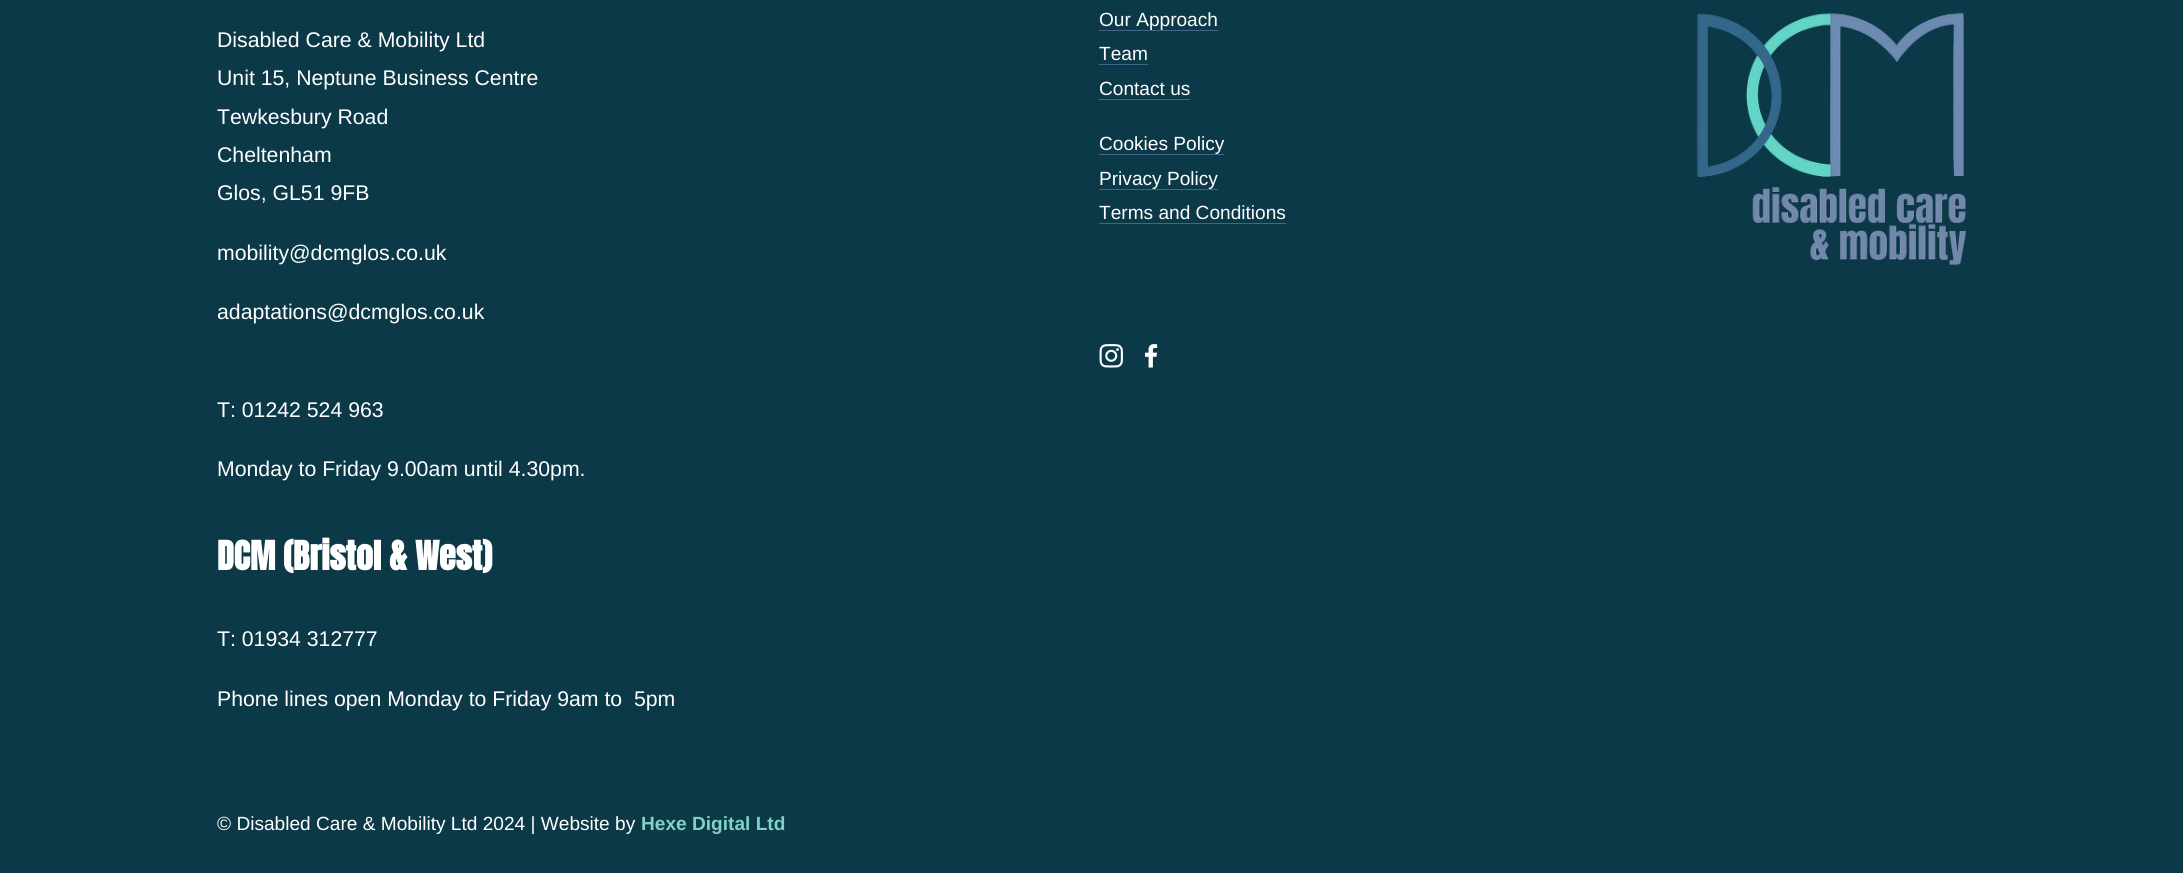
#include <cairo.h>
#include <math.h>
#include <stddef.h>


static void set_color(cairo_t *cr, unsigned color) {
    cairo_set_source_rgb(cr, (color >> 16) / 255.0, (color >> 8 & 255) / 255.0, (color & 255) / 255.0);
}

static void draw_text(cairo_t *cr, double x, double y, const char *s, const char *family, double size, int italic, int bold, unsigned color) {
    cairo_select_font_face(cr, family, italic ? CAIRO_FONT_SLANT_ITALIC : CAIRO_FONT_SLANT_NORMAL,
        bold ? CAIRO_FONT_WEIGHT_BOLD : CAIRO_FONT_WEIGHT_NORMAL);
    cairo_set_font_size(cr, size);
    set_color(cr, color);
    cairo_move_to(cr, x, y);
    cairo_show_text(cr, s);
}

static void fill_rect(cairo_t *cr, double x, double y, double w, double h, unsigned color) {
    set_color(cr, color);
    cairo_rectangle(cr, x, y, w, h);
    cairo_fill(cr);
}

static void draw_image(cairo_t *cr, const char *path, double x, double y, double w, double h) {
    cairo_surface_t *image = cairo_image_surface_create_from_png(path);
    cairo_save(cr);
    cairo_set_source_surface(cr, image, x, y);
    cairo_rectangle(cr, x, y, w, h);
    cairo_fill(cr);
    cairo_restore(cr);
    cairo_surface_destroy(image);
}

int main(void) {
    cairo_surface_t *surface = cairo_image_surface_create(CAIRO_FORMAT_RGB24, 2183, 873);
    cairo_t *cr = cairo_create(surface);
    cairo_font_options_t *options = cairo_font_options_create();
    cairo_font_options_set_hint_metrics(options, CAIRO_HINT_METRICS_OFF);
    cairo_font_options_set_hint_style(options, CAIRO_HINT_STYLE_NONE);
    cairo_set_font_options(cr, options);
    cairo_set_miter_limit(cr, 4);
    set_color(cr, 0x0B3947);
    cairo_paint(cr);
    draw_text(cr, 217, 47, "Disabled Care & Mobility Ltd", "Liberation Sans", 21.25, 0, 0, 0xFFFFFF);
    draw_text(cr, 217, 85, "Unit 15, Neptune Business Centre", "Liberation Sans", 21.25, 0, 0, 0xFFFFFF);
    draw_text(cr, 217, 124, "Tewkesbury Road", "Liberation Sans", 21.25, 0, 0, 0xFFFFFF);
    draw_text(cr, 217, 162, "Cheltenham", "Liberation Sans", 21.25, 0, 0, 0xFFFFFF);
    draw_text(cr, 217, 200, "Glos, GL51 9FB", "Liberation Sans", 21.25, 0, 0, 0xFFFFFF);
    draw_text(cr, 217, 260, "mobility@dcmglos.co.uk", "Liberation Sans", 21.25, 0, 0, 0xFFFFFF);
    draw_text(cr, 217, 319, "adaptations@dcmglos.co.uk", "Liberation Sans", 21.25, 0, 0, 0xFFFFFF);
    draw_text(cr, 217, 417, "T: 01242 524 963", "Liberation Sans", 21.25, 0, 0, 0xFFFFFF);
    draw_text(cr, 217, 476, "Monday to Friday 9.00am until 4.30pm.", "Liberation Sans", 21.25, 0, 0, 0xFFFFFF);
    draw_text(cr, 217, 570, "DCM (Bristol & West)", "Anton", 34, 0, 1, 0xFFFFFF);
    draw_text(cr, 217, 646, "T: 01934 312777", "Liberation Sans", 21.25, 0, 0, 0xFFFFFF);
    draw_text(cr, 217, 706, "Phone lines open Monday to Friday 9am to  5pm", "Liberation Sans", 21.25, 0, 0, 0xFFFFFF);
    draw_text(cr, 1099, 26, "Our Approach", "Liberation Sans", 19.1, 0, 0, 0xFFFFFF);
    fill_rect(cr, 1099, 30, 119, 1, 0x416687);
    draw_text(cr, 1099, 60, "Team", "Liberation Sans", 19.1, 0, 0, 0xFFFFFF);
    fill_rect(cr, 1099, 64, 49, 1, 0x416687);
    draw_text(cr, 1099, 95, "Contact us", "Liberation Sans", 19.1, 0, 0, 0xFFFFFF);
    fill_rect(cr, 1099, 99, 91, 1, 0x416687);
    draw_text(cr, 1099, 150, "Cookies Policy", "Liberation Sans", 19.1, 0, 0, 0xFFFFFF);
    fill_rect(cr, 1099, 154, 125, 1, 0x416687);
    draw_text(cr, 1099, 185, "Privacy Policy", "Liberation Sans", 19.1, 0, 0, 0xFFFFFF);
    fill_rect(cr, 1099, 189, 119, 1, 0x416687);
    draw_text(cr, 1099, 219, "Terms and Conditions", "Liberation Sans", 19.1, 0, 0, 0xFFFFFF);
    fill_rect(cr, 1099, 223, 187, 1, 0x416687);
    draw_image(cr, "assets/img1.png", 1696, 12, 271, 253);
    draw_image(cr, "assets/img2.png", 1099, 344, 24, 24);
    draw_image(cr, "assets/img3.png", 1145, 344, 13, 24);
    draw_text(cr, 217, 830, "© Disabled Care & Mobility Ltd 2024 | Website by", "Liberation Sans", 19.1, 0, 0, 0xFFFFFF);
    draw_text(cr, 641, 830, "Hexe Digital Ltd", "Liberation Sans", 19.1, 0, 1, 0x81D1C6);
    cairo_surface_write_to_png(surface, "output.png");
    cairo_font_options_destroy(options);
    cairo_destroy(cr);
    cairo_surface_destroy(surface);
    return 0;
}
